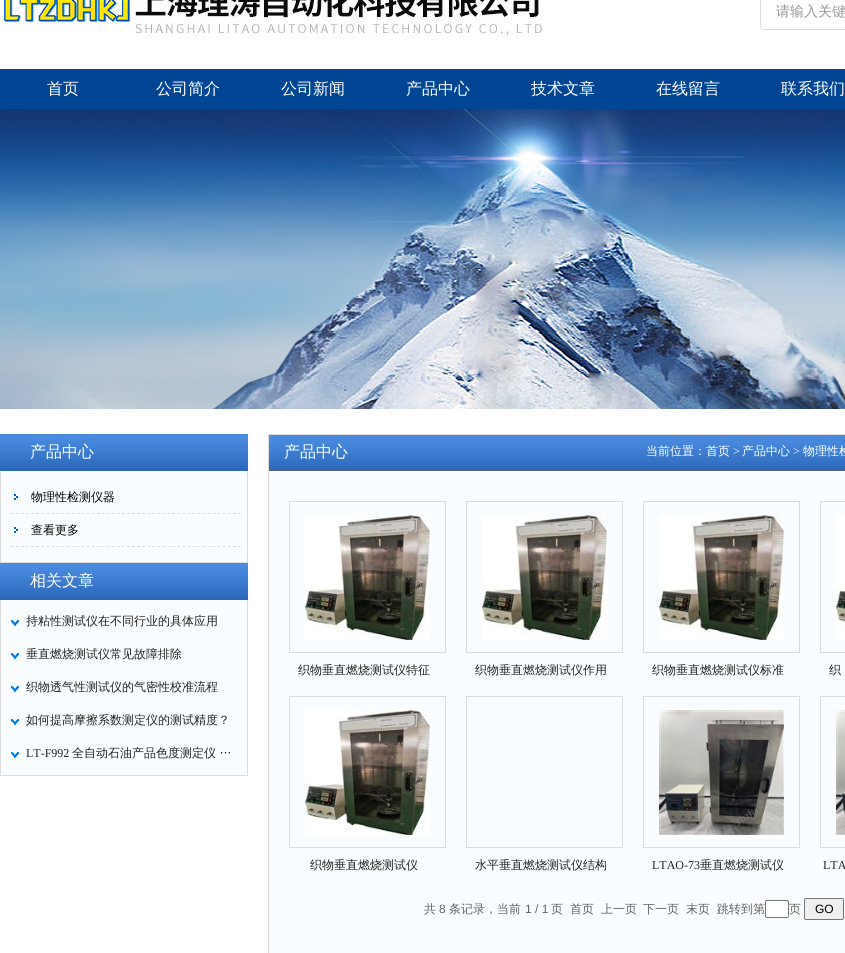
#include <cairo.h>
#include <math.h>
#include <stddef.h>


static void set_color(cairo_t *cr, unsigned color) {
    cairo_set_source_rgb(cr, (color >> 16) / 255.0, (color >> 8 & 255) / 255.0, (color & 255) / 255.0);
}

static void draw_text(cairo_t *cr, double x, double y, const char *s, const char *family, double size, int italic, int bold, unsigned color) {
    cairo_select_font_face(cr, family, italic ? CAIRO_FONT_SLANT_ITALIC : CAIRO_FONT_SLANT_NORMAL,
        bold ? CAIRO_FONT_WEIGHT_BOLD : CAIRO_FONT_WEIGHT_NORMAL);
    cairo_set_font_size(cr, size);
    set_color(cr, color);
    cairo_move_to(cr, x, y);
    cairo_show_text(cr, s);
}

static void fill_rect(cairo_t *cr, double x, double y, double w, double h, unsigned color) {
    set_color(cr, color);
    cairo_rectangle(cr, x, y, w, h);
    cairo_fill(cr);
}

static void rounded_rect(cairo_t *cr, double x, double y, double w, double h, double r) {
    cairo_new_sub_path(cr);
    cairo_arc(cr, x + w - r, y + h - r, r, 0, M_PI / 2);
    cairo_arc(cr, x + r, y + h - r, r, M_PI / 2, M_PI);
    cairo_arc(cr, x + r, y + r, r, M_PI, 1.5 * M_PI);
    cairo_arc(cr, x + w - r, y + r, r, 1.5 * M_PI, 2 * M_PI);
    cairo_close_path(cr);
}

static void draw_image(cairo_t *cr, const char *path, double x, double y, double w, double h) {
    cairo_surface_t *image = cairo_image_surface_create_from_png(path);
    cairo_save(cr);
    cairo_set_source_surface(cr, image, x, y);
    cairo_rectangle(cr, x, y, w, h);
    cairo_fill(cr);
    cairo_restore(cr);
    cairo_surface_destroy(image);
}

int main(void) {
    cairo_surface_t *surface = cairo_image_surface_create(CAIRO_FORMAT_RGB24, 845, 953);
    cairo_t *cr = cairo_create(surface);
    cairo_font_options_t *options = cairo_font_options_create();
    cairo_font_options_set_hint_metrics(options, CAIRO_HINT_METRICS_OFF);
    cairo_font_options_set_hint_style(options, CAIRO_HINT_STYLE_NONE);
    cairo_set_font_options(cr, options);
    cairo_set_miter_limit(cr, 4);
    set_color(cr, 0xFFFFFF);
    cairo_paint(cr);
    draw_image(cr, "assets/img1.png", 0, 0, 543, 38);
    set_color(cr, 0xDDDDDD);
    cairo_set_fill_rule(cr, CAIRO_FILL_RULE_EVEN_ODD);
    cairo_new_path(cr);
    cairo_move_to(cr, 764, -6);
    cairo_line_to(cr, 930, -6);
    cairo_line_to(cr, 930, 30);
    cairo_line_to(cr, 764, 30);
    cairo_curve_to(cr, 762, 30, 760, 28, 760, 26);
    cairo_line_to(cr, 760, -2);
    cairo_curve_to(cr, 760, -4, 762, -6, 764, -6);
    cairo_close_path(cr);
    cairo_move_to(cr, 764, -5);
    cairo_line_to(cr, 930, -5);
    cairo_line_to(cr, 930, 29);
    cairo_line_to(cr, 764, 29);
    cairo_curve_to(cr, 762, 29, 761, 28, 761, 26);
    cairo_line_to(cr, 761, -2);
    cairo_curve_to(cr, 761, -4, 762, -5, 764, -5);
    cairo_close_path(cr);
    cairo_fill(cr);
    draw_text(cr, 776, 16, "请输入关键", "WenQuanYi Zen Hei Medium", 14, 0, 0, 0x999999);
    fill_rect(cr, 0, 69, 845, 40, 0x004695);
    draw_text(cr, 47, 94, "首页", "WenQuanYi Zen Hei Medium", 16, 0, 0, 0xFFFFFF);
    draw_text(cr, 156, 94, "公司简介", "WenQuanYi Zen Hei Medium", 16, 0, 0, 0xFFFFFF);
    draw_text(cr, 281, 94, "公司新闻", "WenQuanYi Zen Hei Medium", 16, 0, 0, 0xFFFFFF);
    draw_text(cr, 406, 94, "产品中心", "WenQuanYi Zen Hei Medium", 16, 0, 0, 0xFFFFFF);
    draw_text(cr, 531, 94, "技术文章", "WenQuanYi Zen Hei Medium", 16, 0, 0, 0xFFFFFF);
    draw_text(cr, 656, 94, "在线留言", "WenQuanYi Zen Hei Medium", 16, 0, 0, 0xFFFFFF);
    draw_text(cr, 781, 94, "联系我们", "WenQuanYi Zen Hei Medium", 16, 0, 0, 0xFFFFFF);
    draw_image(cr, "assets/img2.png", 0, 109, 845, 300);
    draw_image(cr, "assets/img3.png", 0, 434, 248, 37);
    draw_text(cr, 30, 457, "产品中心", "WenQuanYi Zen Hei Medium", 16, 0, 0, 0xFFFFFF);
    fill_rect(cr, 1, 471, 246, 91, 0xFAFDFF);
    fill_rect(cr, 247, 471, 1, 92, 0xDCDCDC);
    fill_rect(cr, 0, 562, 248, 1, 0xDCDCDC);
    fill_rect(cr, 0, 471, 1, 92, 0xDCDCDC);
    draw_image(cr, "assets/img4.png", 14, 494, 4, 6);
    cairo_new_path(cr);
    cairo_move_to(cr, 11, 513.5);
    cairo_line_to(cr, 241, 513.5);
    set_color(cr, 0xDDDDDD);
    cairo_set_line_width(cr, 1);
    cairo_set_dash(cr, (double[]){3, 2.04}, 2, 0);
    cairo_stroke(cr);
    draw_text(cr, 31, 501, "物理性检测仪器", "WenQuanYi Zen Hei Medium", 12, 0, 0, 0x000000);
    draw_image(cr, "assets/img4.png", 14, 527, 4, 6);
    cairo_new_path(cr);
    cairo_move_to(cr, 11, 546.5);
    cairo_line_to(cr, 241, 546.5);
    set_color(cr, 0xDDDDDD);
    cairo_stroke(cr);
    draw_text(cr, 31, 534, "查看更多", "WenQuanYi Zen Hei Medium", 12, 0, 0, 0x000000);
    draw_image(cr, "assets/img3.png", 0, 563, 248, 37);
    draw_text(cr, 30, 586, "相关文章", "WenQuanYi Zen Hei Medium", 16, 0, 0, 0xFFFFFF);
    fill_rect(cr, 1, 600, 246, 175, 0xFAFDFF);
    fill_rect(cr, 247, 600, 1, 176, 0xDCDCDC);
    fill_rect(cr, 0, 775, 248, 1, 0xDCDCDC);
    fill_rect(cr, 0, 600, 1, 176, 0xDCDCDC);
    draw_image(cr, "assets/img5.png", 11, 620, 8, 6);
    draw_text(cr, 26, 625, "持粘性测试仪在不同行业的具体应用", "WenQuanYi Zen Hei Medium", 12, 0, 0, 0x222222);
    draw_image(cr, "assets/img5.png", 11, 653, 8, 6);
    draw_text(cr, 26, 658, "垂直燃烧测试仪常见故障排除", "WenQuanYi Zen Hei Medium", 12, 0, 0, 0x222222);
    draw_image(cr, "assets/img5.png", 11, 686, 8, 6);
    draw_text(cr, 26, 691, "织物透气性测试仪的气密性校准流程", "WenQuanYi Zen Hei Medium", 12, 0, 0, 0x222222);
    draw_image(cr, "assets/img5.png", 11, 719, 8, 6);
    draw_text(cr, 26, 724, "如何提高摩擦系数测定仪的测试精度？", "WenQuanYi Zen Hei Medium", 12, 0, 0, 0x222222);
    draw_image(cr, "assets/img5.png", 11, 752, 8, 6);
    draw_text(cr, 26, 757, "LT-F992", "Liberation Serif", 12, 0, 0, 0x222222);
    draw_text(cr, 72, 757, "全自动石油产品色度测定仪 …", "WenQuanYi Zen Hei Medium", 12, 0, 0, 0x222222);
    fill_rect(cr, 269, 471, 576, 482, 0xFAFDFF);
    cairo_rectangle(cr, 268.5, 434.5, 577, 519);
    set_color(cr, 0xDCDCDC);
    cairo_set_dash(cr, NULL, 0, 0);
    cairo_stroke(cr);
    draw_image(cr, "assets/img6.png", 269, 435, 576, 35);
    fill_rect(cr, 363, 470, 482, 1, 0x556177);
    fill_rect(cr, 269, 469, 94, 2, 0x556177);
    draw_text(cr, 284, 457, "产品中心", "WenQuanYi Zen Hei Medium", 16, 0, 0, 0xFFFFFF);
    draw_text(cr, 646, 455, "当前位置：首页", "WenQuanYi Zen Hei Medium", 12, 0, 0, 0xFFFFFF);
    draw_text(cr, 733, 455, ">", "Liberation Serif", 12, 0, 0, 0xFFFFFF);
    draw_text(cr, 742, 455, "产品中心", "WenQuanYi Zen Hei Medium", 12, 0, 0, 0xFFFFFF);
    draw_text(cr, 793, 455, ">", "Liberation Serif", 12, 0, 0, 0xFFFFFF);
    draw_text(cr, 803, 455, "物理性检", "WenQuanYi Zen Hei Medium", 12, 0, 0, 0xFFFFFF);
    cairo_rectangle(cr, 289.5, 501.5, 156, 151);
    set_color(cr, 0xDDDDDD);
    cairo_stroke(cr);
    draw_image(cr, "assets/img7.png", 305, 515, 125, 125);
    draw_text(cr, 298, 674, "织物垂直燃烧测试仪特征", "WenQuanYi Zen Hei Medium", 12, 0, 0, 0x222222);
    cairo_rectangle(cr, 466.5, 501.5, 156, 151);
    set_color(cr, 0xDDDDDD);
    cairo_stroke(cr);
    draw_image(cr, "assets/img7.png", 482, 515, 125, 125);
    draw_text(cr, 475, 674, "织物垂直燃烧测试仪作用", "WenQuanYi Zen Hei Medium", 12, 0, 0, 0x222222);
    cairo_rectangle(cr, 643.5, 501.5, 156, 151);
    set_color(cr, 0xDDDDDD);
    cairo_stroke(cr);
    draw_image(cr, "assets/img8.png", 659, 515, 125, 125);
    draw_text(cr, 652, 674, "织物垂直燃烧测试仪标准", "WenQuanYi Zen Hei Medium", 12, 0, 0, 0x222222);
    cairo_rectangle(cr, 820.5, 501.5, 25, 151);
    set_color(cr, 0xDDDDDD);
    cairo_stroke(cr);
    draw_image(cr, "assets/img9.png", 836, 515, 9, 125);
    draw_text(cr, 829, 674, "织", "WenQuanYi Zen Hei Medium", 12, 0, 0, 0x222222);
    cairo_rectangle(cr, 289.5, 696.5, 156, 151);
    set_color(cr, 0xDDDDDD);
    cairo_stroke(cr);
    draw_image(cr, "assets/img10.png", 305, 710, 125, 125);
    draw_text(cr, 310, 869, "织物垂直燃烧测试仪", "WenQuanYi Zen Hei Medium", 12, 0, 0, 0x222222);
    cairo_rectangle(cr, 466.5, 696.5, 156, 151);
    set_color(cr, 0xDDDDDD);
    cairo_stroke(cr);
    draw_text(cr, 475, 869, "水平垂直燃烧测试仪结构", "WenQuanYi Zen Hei Medium", 12, 0, 0, 0x222222);
    cairo_rectangle(cr, 643.5, 696.5, 156, 151);
    set_color(cr, 0xDDDDDD);
    cairo_stroke(cr);
    draw_image(cr, "assets/img11.png", 659, 710, 125, 125);
    draw_text(cr, 652, 869, "LTAO-73", "Liberation Serif", 12, 0, 0, 0x222222);
    draw_text(cr, 700, 869, "垂直燃烧测试仪", "WenQuanYi Zen Hei Medium", 12, 0, 0, 0x222222);
    cairo_rectangle(cr, 820.5, 696.5, 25, 151);
    set_color(cr, 0xDDDDDD);
    cairo_stroke(cr);
    draw_image(cr, "assets/img12.png", 836, 710, 9, 125);
    draw_text(cr, 823, 869, "LTA", "Liberation Serif", 12, 0, 0, 0x222222);
    draw_text(cr, 424, 913, "共", "WenQuanYi Zen Hei Medium", 12, 0, 0, 0x606060);
    draw_text(cr, 439, 913, "8", "Liberation Sans", 12, 0, 0, 0x606060);
    draw_text(cr, 449, 913, "条记录，当前", "WenQuanYi Zen Hei Medium", 12, 0, 0, 0x606060);
    draw_text(cr, 525, 913, "1 / 1", "Liberation Sans", 12, 0, 0, 0x606060);
    draw_text(cr, 551, 913, "页", "WenQuanYi Zen Hei Medium", 12, 0, 0, 0x606060);
    draw_text(cr, 570, 913, "首页", "WenQuanYi Zen Hei Medium", 12, 0, 0, 0x606060);
    draw_text(cr, 601, 913, "上一页", "WenQuanYi Zen Hei Medium", 12, 0, 0, 0x606060);
    draw_text(cr, 643, 913, "下一页", "WenQuanYi Zen Hei Medium", 12, 0, 0, 0x606060);
    draw_text(cr, 686, 913, "末页", "WenQuanYi Zen Hei Medium", 12, 0, 0, 0x606060);
    draw_text(cr, 717, 913, "跳转到第", "WenQuanYi Zen Hei Medium", 12, 0, 0, 0x606060);
    set_color(cr, 0xFFFFFF);
    rounded_rect(cr, 765.5, 900.5, 23, 17, 1.5);
    cairo_fill_preserve(cr);
    set_color(cr, 0x767676);
    cairo_stroke(cr);
    draw_text(cr, 789, 913, "页", "WenQuanYi Zen Hei Medium", 12, 0, 0, 0x606060);
    set_color(cr, 0xEFEFEF);
    rounded_rect(cr, 804.5, 898.5, 39, 21, 1.5);
    cairo_fill_preserve(cr);
    set_color(cr, 0x767676);
    cairo_stroke(cr);
    draw_text(cr, 815, 913, "GO", "Liberation Sans", 12, 0, 0, 0x000000);
    cairo_surface_write_to_png(surface, "output.png");
    cairo_font_options_destroy(options);
    cairo_destroy(cr);
    cairo_surface_destroy(surface);
    return 0;
}
